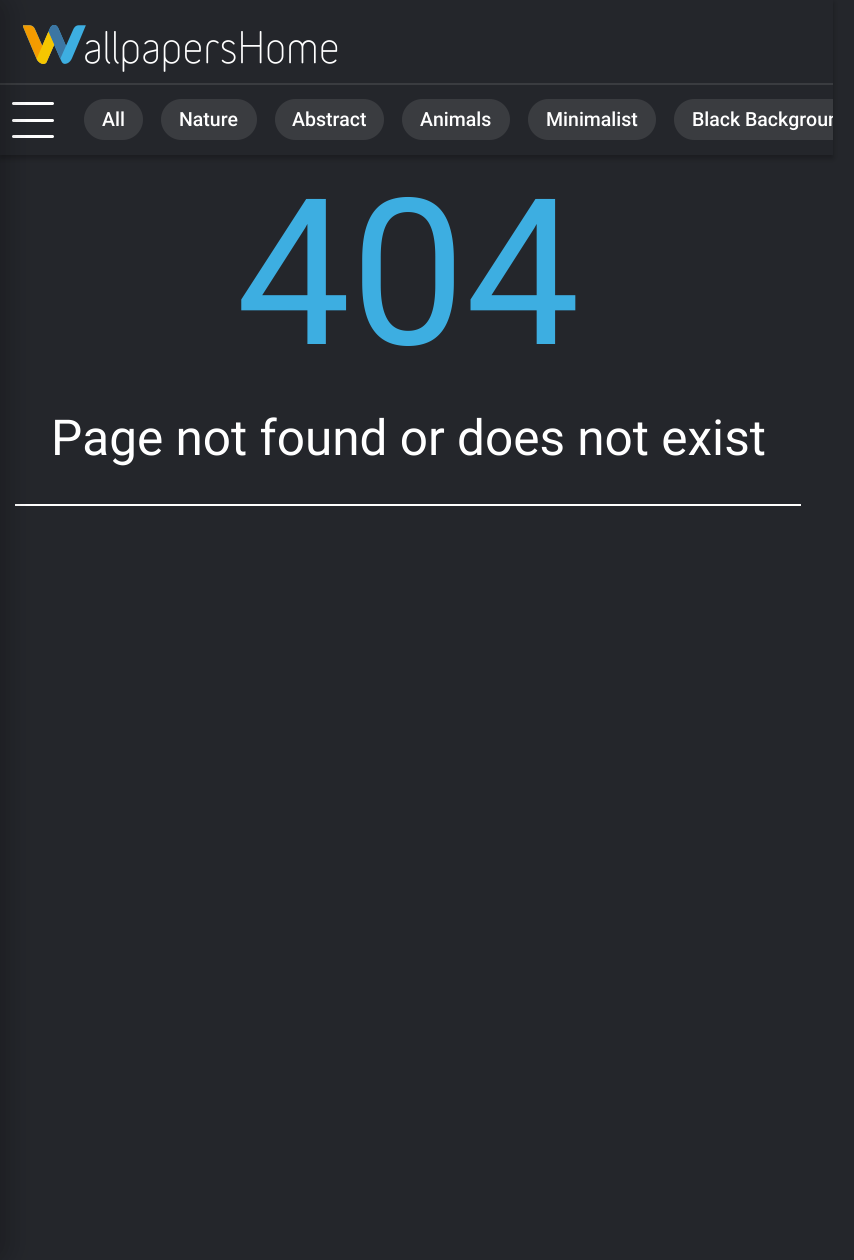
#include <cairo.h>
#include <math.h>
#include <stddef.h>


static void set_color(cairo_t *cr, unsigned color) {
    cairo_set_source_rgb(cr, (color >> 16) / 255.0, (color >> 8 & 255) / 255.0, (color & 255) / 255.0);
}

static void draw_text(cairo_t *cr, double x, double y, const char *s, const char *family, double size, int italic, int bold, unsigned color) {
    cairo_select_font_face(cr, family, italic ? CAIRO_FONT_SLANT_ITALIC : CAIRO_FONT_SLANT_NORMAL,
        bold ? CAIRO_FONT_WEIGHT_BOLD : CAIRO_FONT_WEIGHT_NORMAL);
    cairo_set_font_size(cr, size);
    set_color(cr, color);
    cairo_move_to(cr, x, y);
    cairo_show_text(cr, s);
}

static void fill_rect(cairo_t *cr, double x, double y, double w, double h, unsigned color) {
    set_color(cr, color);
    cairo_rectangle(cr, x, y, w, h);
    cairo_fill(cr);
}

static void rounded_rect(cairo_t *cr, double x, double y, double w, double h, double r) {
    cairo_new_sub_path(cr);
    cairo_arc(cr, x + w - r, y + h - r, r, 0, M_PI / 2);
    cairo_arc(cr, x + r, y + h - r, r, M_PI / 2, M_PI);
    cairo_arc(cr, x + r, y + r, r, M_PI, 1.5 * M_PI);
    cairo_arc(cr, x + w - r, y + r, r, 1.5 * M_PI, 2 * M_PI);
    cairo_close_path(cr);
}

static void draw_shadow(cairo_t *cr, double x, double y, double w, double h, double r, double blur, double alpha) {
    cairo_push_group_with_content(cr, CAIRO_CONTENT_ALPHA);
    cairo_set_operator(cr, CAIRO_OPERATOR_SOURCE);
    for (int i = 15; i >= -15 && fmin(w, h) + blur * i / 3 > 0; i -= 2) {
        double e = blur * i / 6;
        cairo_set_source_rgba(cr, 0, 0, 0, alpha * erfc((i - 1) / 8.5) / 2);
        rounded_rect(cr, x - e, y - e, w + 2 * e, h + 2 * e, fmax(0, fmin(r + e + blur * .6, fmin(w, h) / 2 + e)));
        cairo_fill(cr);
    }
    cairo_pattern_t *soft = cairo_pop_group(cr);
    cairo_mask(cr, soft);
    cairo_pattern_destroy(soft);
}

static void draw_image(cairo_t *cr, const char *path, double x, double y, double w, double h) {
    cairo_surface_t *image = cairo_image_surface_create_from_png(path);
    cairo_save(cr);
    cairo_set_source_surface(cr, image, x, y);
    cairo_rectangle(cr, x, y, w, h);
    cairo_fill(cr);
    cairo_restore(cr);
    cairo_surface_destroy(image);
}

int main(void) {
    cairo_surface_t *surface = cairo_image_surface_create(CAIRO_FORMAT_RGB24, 854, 1260);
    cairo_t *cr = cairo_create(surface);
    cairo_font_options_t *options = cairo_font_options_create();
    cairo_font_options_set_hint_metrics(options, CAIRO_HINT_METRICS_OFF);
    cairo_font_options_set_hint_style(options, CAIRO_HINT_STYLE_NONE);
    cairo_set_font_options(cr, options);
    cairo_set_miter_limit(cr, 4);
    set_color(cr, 0x24262B);
    cairo_paint(cr);
    set_color(cr, 0x000000);
    draw_shadow(cr, 0, 3, 833, 155, 0, 3, 0.3);
    fill_rect(cr, 0, 0, 833, 155, 0x24262B);
    draw_image(cr, "assets/img1.png", 23, 25, 315, 47);
    fill_rect(cr, 0, 83, 833, 2, 0x3A3C40);
    set_color(cr, 0xFFFFFF);
    rounded_rect(cr, 12, 102, 42, 3, 1.5);
    cairo_fill(cr);
    rounded_rect(cr, 12, 119, 42, 3, 1.5);
    cairo_fill(cr);
    rounded_rect(cr, 12, 135, 42, 3, 1.5);
    cairo_fill(cr);
    set_color(cr, 0x3A3C40);
    rounded_rect(cr, 84, 99, 59, 41, 20.5);
    cairo_fill(cr);
    draw_text(cr, 102, 126, "All", "Roboto Medium", 19.5, 0, 0, 0xFFFFFF);
    set_color(cr, 0x3A3C40);
    rounded_rect(cr, 161, 99, 96, 41, 20.5);
    cairo_fill(cr);
    draw_text(cr, 179, 126, "Nature", "Roboto Medium", 19.5, 0, 0, 0xFFFFFF);
    set_color(cr, 0x3A3C40);
    rounded_rect(cr, 275, 99, 109, 41, 20.5);
    cairo_fill(cr);
    draw_text(cr, 292, 126, "Abstract", "Roboto Medium", 19.5, 0, 0, 0xFFFFFF);
    set_color(cr, 0x3A3C40);
    rounded_rect(cr, 402, 99, 108, 41, 20.5);
    cairo_fill(cr);
    draw_text(cr, 420, 126, "Animals", "Roboto Medium", 19.5, 0, 0, 0xFFFFFF);
    set_color(cr, 0x3A3C40);
    rounded_rect(cr, 528, 99, 128, 41, 20.5);
    cairo_fill(cr);
    draw_text(cr, 546, 126, "Minimalist", "Roboto Medium", 19.5, 0, 0, 0xFFFFFF);
    set_color(cr, 0x3A3C40);
    cairo_new_path(cr);
    cairo_move_to(cr, 694.5, 99);
    cairo_line_to(cr, 833, 99);
    cairo_line_to(cr, 833, 140);
    cairo_line_to(cr, 694.5, 140);
    cairo_curve_to(cr, 683, 140, 674, 131, 674, 119.5);
    cairo_curve_to(cr, 674, 108, 683, 99, 694.5, 99);
    cairo_close_path(cr);
    cairo_fill(cr);
    cairo_save(cr);
    cairo_rectangle(cr, 69, 84, 764, 71);
    cairo_clip(cr);
    draw_text(cr, 692, 126, "Black Backgroun", "Roboto Medium", 19.5, 0, 0, 0xFFFFFF);
    cairo_restore(cr);
    fill_rect(cr, 15, 504, 786, 2, 0xFFFFFF);
    set_color(cr, 0x000000);
    draw_shadow(cr, -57, 0, 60, 1260, 12, 15, 0.3);
    draw_text(cr, 236, 344, "404", "Roboto", 204, 0, 0, 0x3DAEE1);
    draw_text(cr, 51, 455, "Page not found or does not exist", "Roboto", 49.5, 0, 0, 0xFFFFFF);
    cairo_surface_write_to_png(surface, "output.png");
    cairo_font_options_destroy(options);
    cairo_destroy(cr);
    cairo_surface_destroy(surface);
    return 0;
}
